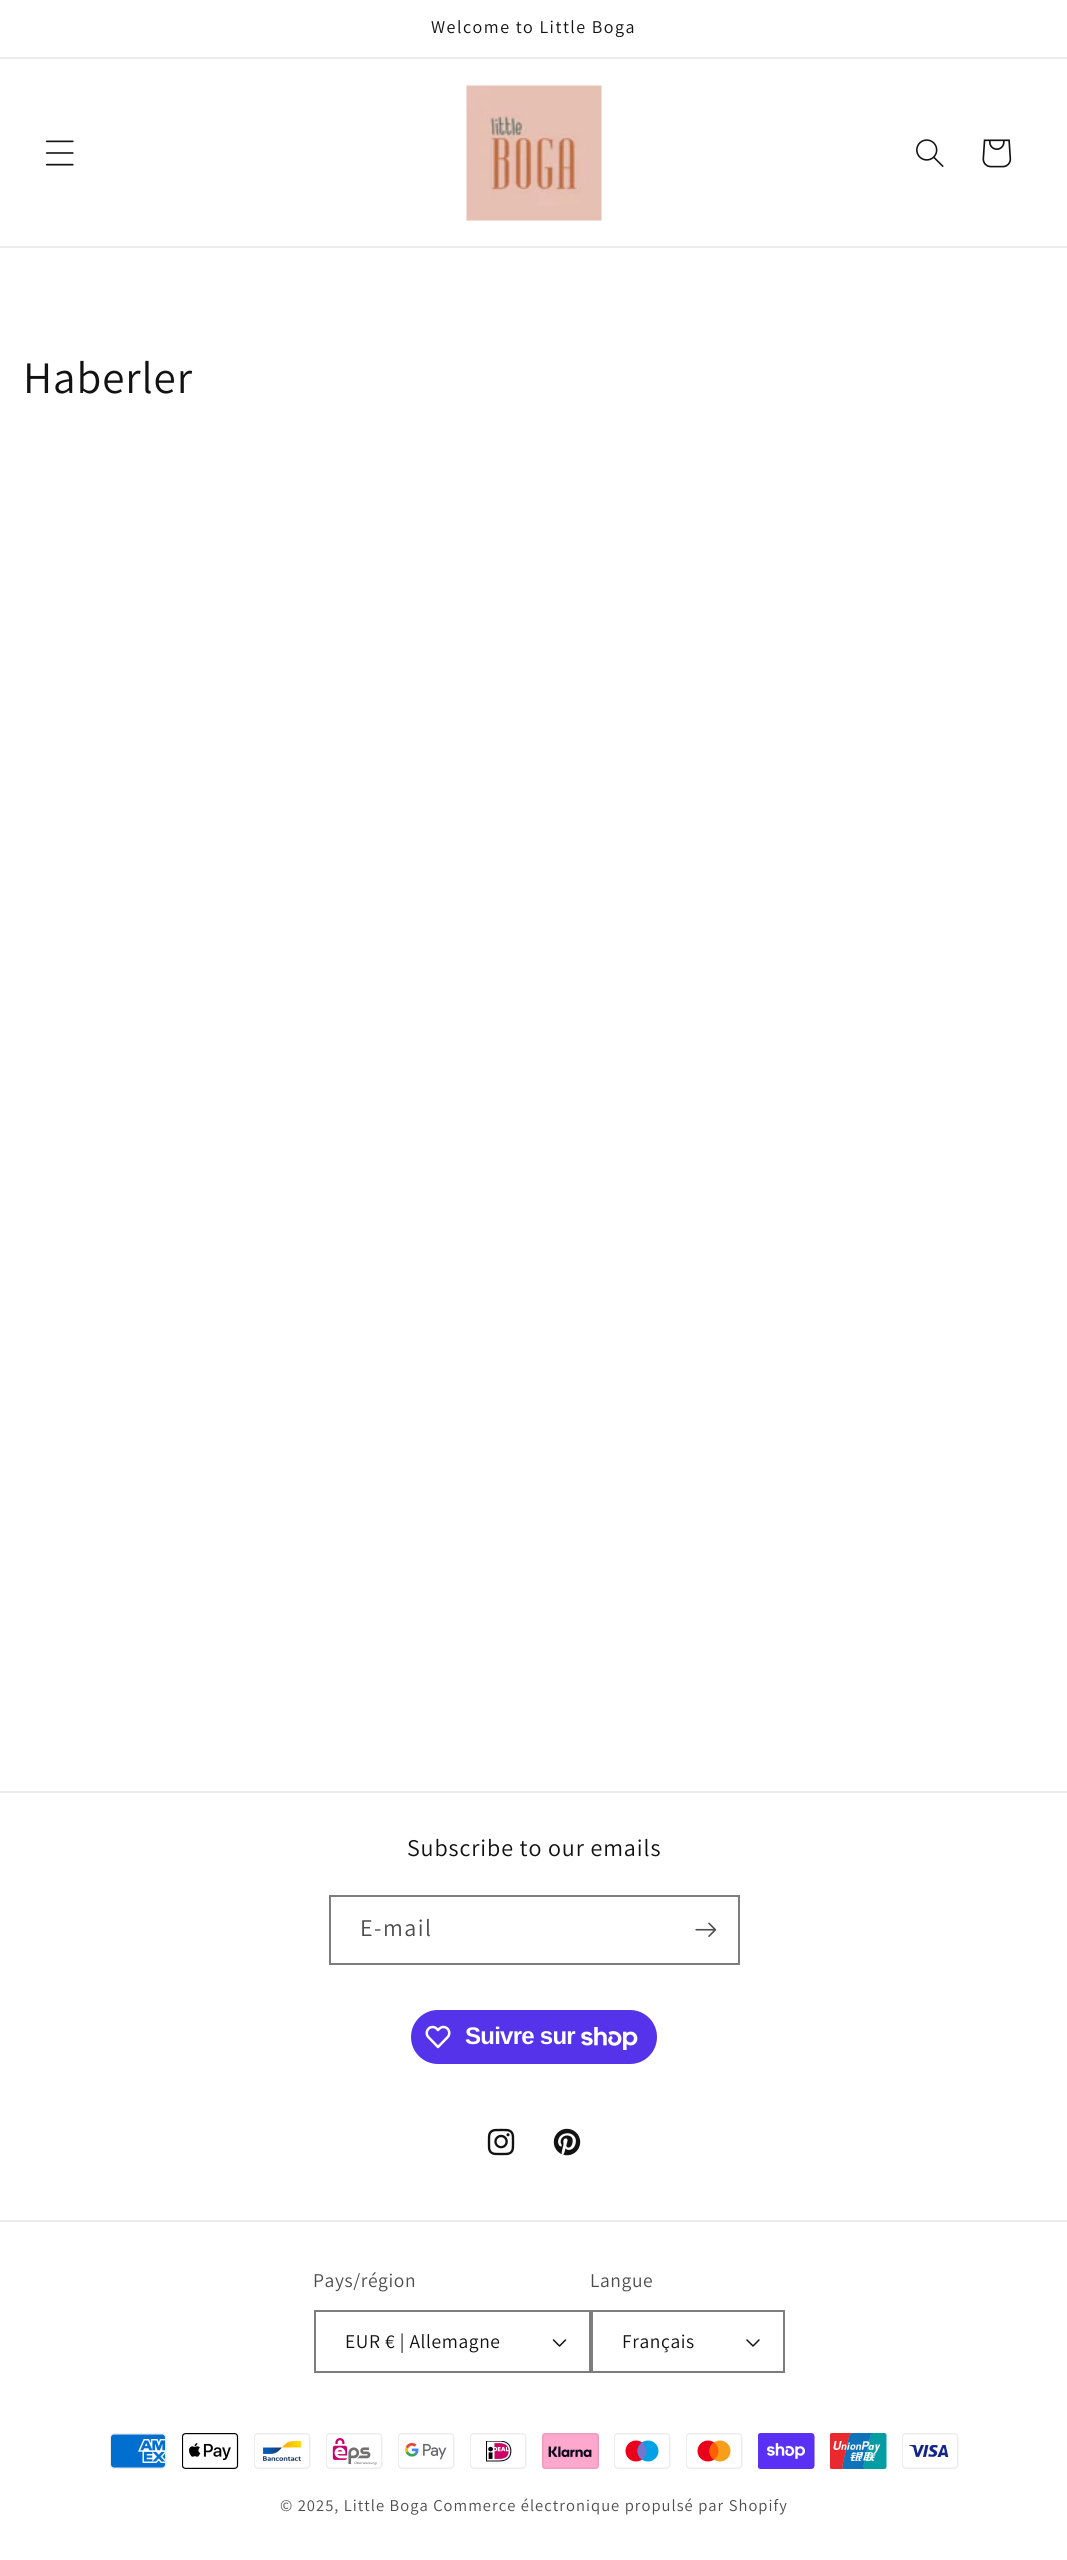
#include <cairo.h>
#include <math.h>
#include <stddef.h>


static void set_color(cairo_t *cr, unsigned color) {
    cairo_set_source_rgb(cr, (color >> 16) / 255.0, (color >> 8 & 255) / 255.0, (color & 255) / 255.0);
}

static void draw_spaced(cairo_t *cr, double x, double y, const char *s, double letter, double word) {
    cairo_move_to(cr, x, y);
    while (*s) {
        char ch[5] = {0};
        int n = 0;
        do ch[n++] = *s++; while ((*s & 0xC0) == 0x80);
        cairo_show_text(cr, ch);
        cairo_rel_move_to(cr, letter + word * (*ch == ' '), 0);
    }
}

static void fill_rect(cairo_t *cr, double x, double y, double w, double h, unsigned color) {
    set_color(cr, color);
    cairo_rectangle(cr, x, y, w, h);
    cairo_fill(cr);
}

static void rounded_rect(cairo_t *cr, double x, double y, double w, double h, double r) {
    cairo_new_sub_path(cr);
    cairo_arc(cr, x + w - r, y + h - r, r, 0, M_PI / 2);
    cairo_arc(cr, x + r, y + h - r, r, M_PI / 2, M_PI);
    cairo_arc(cr, x + r, y + r, r, M_PI, 1.5 * M_PI);
    cairo_arc(cr, x + w - r, y + r, r, 1.5 * M_PI, 2 * M_PI);
    cairo_close_path(cr);
}

static void draw_image(cairo_t *cr, const char *path, double x, double y, double w, double h) {
    cairo_surface_t *image = cairo_image_surface_create_from_png(path);
    cairo_save(cr);
    cairo_set_source_surface(cr, image, x, y);
    cairo_rectangle(cr, x, y, w, h);
    cairo_fill(cr);
    cairo_restore(cr);
    cairo_surface_destroy(image);
}

int main(void) {
    cairo_surface_t *surface = cairo_image_surface_create(CAIRO_FORMAT_RGB24, 1067, 2560);
    cairo_t *cr = cairo_create(surface);
    cairo_font_options_t *options = cairo_font_options_create();
    cairo_font_options_set_hint_metrics(options, CAIRO_HINT_METRICS_OFF);
    cairo_font_options_set_hint_style(options, CAIRO_HINT_STYLE_NONE);
    cairo_set_font_options(cr, options);
    cairo_set_miter_limit(cr, 4);
    set_color(cr, 0xFFFFFF);
    cairo_paint(cr);
    fill_rect(cr, 0, 57, 1067, 2, 0xECECEC);
    cairo_select_font_face(cr, "Assistant", CAIRO_FONT_SLANT_NORMAL, CAIRO_FONT_WEIGHT_NORMAL);
    cairo_set_font_size(cr, 18);
    set_color(cr, 0x121212);
    draw_spaced(cr, 431, 33, "Welcome to Little Boga", 1.5, 0);
    fill_rect(cr, 0, 246, 1067, 2, 0xECECEC);
    draw_image(cr, "assets/img1.png", 45, 140, 29, 26);
    draw_image(cr, "assets/img2.png", 466, 85, 136, 136);
    draw_image(cr, "assets/img3.png", 916, 139, 28, 28);
    draw_image(cr, "assets/img4.png", 982, 139, 30, 29);
    cairo_set_font_size(cr, 45);
    set_color(cr, 0x121212);
    draw_spaced(cr, 23, 393, "Haberler", 0.9, 0);
    fill_rect(cr, 0, 1791, 1067, 2, 0xECECEC);
    cairo_set_font_size(cr, 24);
    set_color(cr, 0x121212);
    draw_spaced(cr, 407, 1856, "Subscribe to our emails", 0.9, 0);
    cairo_rectangle(cr, 330, 1896, 409, 68);
    set_color(cr, 0x7D7D7D);
    cairo_stroke(cr);
    set_color(cr, 0x4D4D4D);
    draw_spaced(cr, 360, 1936, "E-mail", 1.5, 0);
    draw_image(cr, "assets/img5.png", 695, 1922, 22, 15);
    set_color(cr, 0x5433EB);
    rounded_rect(cr, 411, 2010, 246, 54, 27);
    cairo_fill(cr);
    draw_image(cr, "assets/img6.png", 425, 2025, 26, 24);
    cairo_select_font_face(cr, "Liberation Sans", CAIRO_FONT_SLANT_NORMAL, CAIRO_FONT_WEIGHT_BOLD);
    set_color(cr, 0xFFFFFF);
    draw_spaced(cr, 465, 2044, "Suivre sur", -0.75, 0);
    draw_image(cr, "assets/img7.png", 581, 2027, 57, 23);
    draw_image(cr, "assets/img8.png", 487, 2128, 28, 28);
    draw_image(cr, "assets/img9.png", 553, 2128, 28, 28);
    fill_rect(cr, 0, 2220, 1067, 2, 0xECECEC);
    cairo_select_font_face(cr, "Assistant", CAIRO_FONT_SLANT_NORMAL, CAIRO_FONT_WEIGHT_NORMAL);
    cairo_set_font_size(cr, 19.5);
    set_color(cr, 0x4D4D4D);
    draw_spaced(cr, 313, 2287, "Pays/région", 0.6, 0);
    draw_image(cr, "assets/img10.png", 552, 2339, 15, 8);
    cairo_rectangle(cr, 315, 2311, 275, 61);
    set_color(cr, 0x7D7D7D);
    cairo_stroke(cr);
    set_color(cr, 0x121212);
    draw_spaced(cr, 345, 2348, "EUR € | Allemagne", 0.6, 0);
    set_color(cr, 0x4D4D4D);
    draw_spaced(cr, 590, 2287, "Langue", 0.6, 0);
    draw_image(cr, "assets/img11.png", 746, 2339, 14, 8);
    cairo_rectangle(cr, 592, 2311, 192, 61);
    set_color(cr, 0x7D7D7D);
    cairo_stroke(cr);
    set_color(cr, 0x121212);
    draw_spaced(cr, 622, 2348, "Français", 0.6, 0);
    draw_image(cr, "assets/img12.png", 110, 2433, 57, 36);
    draw_image(cr, "assets/img13.png", 182, 2433, 57, 36);
    draw_image(cr, "assets/img14.png", 254, 2433, 57, 36);
    draw_image(cr, "assets/img15.png", 326, 2433, 57, 36);
    draw_image(cr, "assets/img16.png", 398, 2433, 57, 36);
    draw_image(cr, "assets/img17.png", 470, 2433, 57, 36);
    draw_image(cr, "assets/img18.png", 542, 2433, 57, 36);
    draw_image(cr, "assets/img19.png", 614, 2433, 57, 36);
    draw_image(cr, "assets/img20.png", 686, 2433, 57, 36);
    draw_image(cr, "assets/img21.png", 758, 2433, 57, 36);
    draw_image(cr, "assets/img22.png", 830, 2433, 57, 36);
    draw_image(cr, "assets/img23.png", 902, 2433, 57, 36);
    cairo_set_font_size(cr, 16.5);
    set_color(cr, 0x4D4D4D);
    draw_spaced(cr, 280, 2511, "© 2025, Little Boga Commerce électronique propulsé par Shopify", 1.05, 0);
    cairo_surface_write_to_png(surface, "output.png");
    cairo_font_options_destroy(options);
    cairo_destroy(cr);
    cairo_surface_destroy(surface);
    return 0;
}
